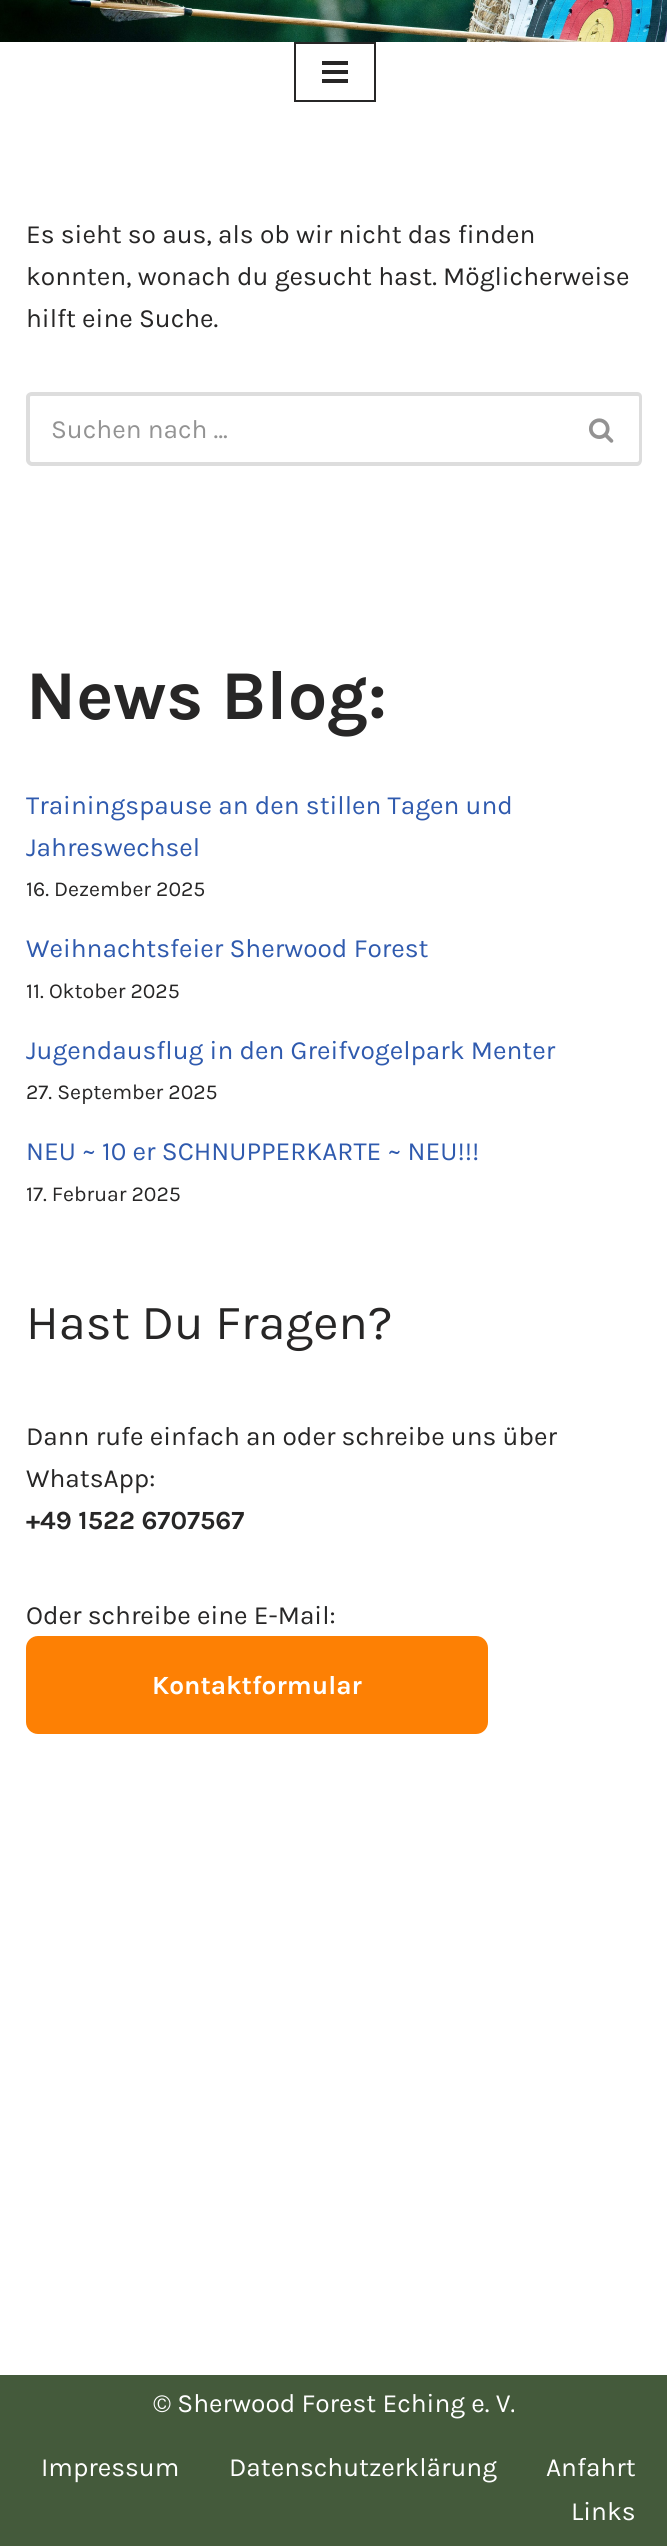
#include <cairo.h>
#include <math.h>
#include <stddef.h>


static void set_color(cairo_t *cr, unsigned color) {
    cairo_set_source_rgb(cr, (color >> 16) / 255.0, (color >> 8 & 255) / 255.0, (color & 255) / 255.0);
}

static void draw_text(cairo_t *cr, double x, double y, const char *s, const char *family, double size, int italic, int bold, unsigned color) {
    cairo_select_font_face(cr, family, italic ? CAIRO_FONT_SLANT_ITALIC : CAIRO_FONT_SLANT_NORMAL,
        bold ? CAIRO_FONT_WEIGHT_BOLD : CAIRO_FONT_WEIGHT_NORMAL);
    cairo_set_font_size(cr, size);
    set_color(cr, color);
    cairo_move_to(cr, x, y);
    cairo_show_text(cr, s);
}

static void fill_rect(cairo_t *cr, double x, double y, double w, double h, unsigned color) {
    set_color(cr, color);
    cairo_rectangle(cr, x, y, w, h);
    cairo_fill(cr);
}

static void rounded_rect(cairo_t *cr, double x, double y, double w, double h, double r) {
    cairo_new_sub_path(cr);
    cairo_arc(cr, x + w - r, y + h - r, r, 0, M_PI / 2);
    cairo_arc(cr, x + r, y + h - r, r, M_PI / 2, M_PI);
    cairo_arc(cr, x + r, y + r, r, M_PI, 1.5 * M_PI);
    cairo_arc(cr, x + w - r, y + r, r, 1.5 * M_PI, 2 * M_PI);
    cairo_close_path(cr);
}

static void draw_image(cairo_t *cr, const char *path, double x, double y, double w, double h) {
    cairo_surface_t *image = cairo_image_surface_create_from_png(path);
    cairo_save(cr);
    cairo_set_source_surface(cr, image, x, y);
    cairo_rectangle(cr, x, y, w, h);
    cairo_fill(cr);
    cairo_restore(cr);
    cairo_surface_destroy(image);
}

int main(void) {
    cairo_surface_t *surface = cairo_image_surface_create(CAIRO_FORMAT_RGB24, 667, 2546);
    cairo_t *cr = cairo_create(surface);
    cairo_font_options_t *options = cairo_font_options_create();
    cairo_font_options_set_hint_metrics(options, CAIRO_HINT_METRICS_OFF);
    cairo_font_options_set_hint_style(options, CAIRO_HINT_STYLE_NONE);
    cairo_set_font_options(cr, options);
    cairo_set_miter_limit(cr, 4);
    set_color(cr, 0xFFFFFF);
    cairo_paint(cr);
    draw_image(cr, "assets/img1.png", 0, 0, 667, 42);
    cairo_rectangle(cr, 295, 43, 80, 58);
    set_color(cr, 0x272626);
    cairo_stroke(cr);
    fill_rect(cr, 322, 61, 26, 4, 0x272626);
    fill_rect(cr, 322, 70, 26, 4, 0x272626);
    fill_rect(cr, 322, 79, 26, 4, 0x272626);
    draw_text(cr, 26, 243, "Es sieht so aus, als ob wir nicht das finden", "Karla", 26.25, 0, 0, 0x272626);
    draw_text(cr, 26, 285, "konnten, wonach du gesucht hast. Möglicherweise", "Karla", 26.25, 0, 0, 0x272626);
    draw_text(cr, 26, 327, "hilft eine Suche.", "Karla", 26.25, 0, 0, 0x272626);
    set_color(cr, 0xDDDDDD);
    cairo_set_fill_rule(cr, CAIRO_FILL_RULE_EVEN_ODD);
    cairo_new_path(cr);
    cairo_move_to(cr, 32, 392);
    cairo_line_to(cr, 564, 392);
    cairo_line_to(cr, 564, 466);
    cairo_line_to(cr, 32, 466);
    cairo_curve_to(cr, 29, 466, 26, 463, 26, 460);
    cairo_line_to(cr, 26, 397);
    cairo_curve_to(cr, 26, 394, 29, 392, 32, 392);
    cairo_close_path(cr);
    cairo_move_to(cr, 32, 396);
    cairo_line_to(cr, 564, 396);
    cairo_line_to(cr, 564, 462);
    cairo_line_to(cr, 32, 462);
    cairo_curve_to(cr, 31, 462, 30, 461, 30, 460);
    cairo_line_to(cr, 30, 397);
    cairo_curve_to(cr, 30, 396, 31, 396, 32, 396);
    cairo_close_path(cr);
    cairo_fill(cr);
    draw_text(cr, 51, 438, "Suchen nach …", "Karla", 26.25, 0, 0, 0x939393);
    set_color(cr, 0xDDDDDD);
    cairo_new_path(cr);
    cairo_move_to(cr, 564, 392);
    cairo_line_to(cr, 637, 392);
    cairo_curve_to(cr, 640, 392, 642, 394, 642, 397);
    cairo_line_to(cr, 642, 460);
    cairo_curve_to(cr, 642, 463, 640, 466, 637, 466);
    cairo_line_to(cr, 564, 466);
    cairo_close_path(cr);
    cairo_move_to(cr, 564, 396);
    cairo_line_to(cr, 637, 396);
    cairo_curve_to(cr, 638, 396, 639, 396, 639, 397);
    cairo_line_to(cr, 639, 460);
    cairo_curve_to(cr, 639, 461, 638, 462, 637, 462);
    cairo_line_to(cr, 564, 462);
    cairo_close_path(cr);
    cairo_fill(cr);
    draw_image(cr, "assets/img2.png", 589, 418, 25, 25);
    draw_text(cr, 26, 719, "News Blog:", "Karla", 70, 0, 1, 0x272626);
    draw_text(cr, 26, 814, "Trainingspause an den stillen Tagen und", "Karla", 26.25, 0, 0, 0x2F5AAE);
    draw_text(cr, 26, 856, "Jahreswechsel", "Karla", 26.25, 0, 0, 0x2F5AAE);
    draw_text(cr, 26, 896, "16. Dezember 2025", "Karla", 21.25, 0, 0, 0x272626);
    draw_text(cr, 26, 957, "Weihnachtsfeier Sherwood Forest", "Karla", 26.25, 0, 0, 0x2F5AAE);
    draw_text(cr, 26, 998, "11. Oktober 2025", "Karla", 21.25, 0, 0, 0x272626);
    draw_text(cr, 26, 1059, "Jugendausflug in den Greifvogelpark Menter", "Karla", 26.25, 0, 0, 0x2F5AAE);
    draw_text(cr, 26, 1099, "27. September 2025", "Karla", 21.25, 0, 0, 0x272626);
    draw_text(cr, 26, 1160, "NEU ~ 10 er SCHNUPPERKARTE ~ NEU!!!", "Karla", 26.25, 0, 0, 0x2F5AAE);
    draw_text(cr, 26, 1201, "17. Februar 2025", "Karla", 21.25, 0, 0, 0x272626);
    draw_text(cr, 26, 1339, "Hast Du Fragen?", "Karla", 49, 0, 0, 0x272626);
    draw_text(cr, 26, 1445, "Dann rufe einfach an oder schreibe uns über", "Karla", 26.25, 0, 0, 0x272626);
    draw_text(cr, 26, 1487, "WhatsApp:", "Karla", 26.25, 0, 0, 0x272626);
    draw_text(cr, 26, 1529, "+49 1522 6707567", "Karla", 26.25, 0, 1, 0x272626);
    draw_text(cr, 26, 1624, "Oder schreibe eine E-Mail:", "Karla", 26.25, 0, 0, 0x272626);
    set_color(cr, 0xFD8004);
    rounded_rect(cr, 26, 1636, 462, 98, 12);
    cairo_fill(cr);
    draw_text(cr, 152, 1694, "Kontaktformular", "Karla", 26.25, 0, 1, 0xFFFFFF);
    fill_rect(cr, 0, 2375, 667, 171, 0x445A3B);
    draw_text(cr, 153, 2412, "© Sherwood Forest Eching e. V.", "Karla", 26.25, 0, 0, 0xFFFFFF);
    draw_text(cr, 41, 2476, "Impressum", "Karla", 26.25, 0, 0, 0xFFFFFF);
    draw_text(cr, 229, 2476, "Datenschutzerklärung", "Karla", 26.25, 0, 0, 0xFFFFFF);
    draw_text(cr, 546, 2476, "Anfahrt", "Karla", 26.25, 0, 0, 0xFFFFFF);
    draw_text(cr, 571, 2520, "Links", "Karla", 26.25, 0, 0, 0xFFFFFF);
    cairo_surface_write_to_png(surface, "output.png");
    cairo_font_options_destroy(options);
    cairo_destroy(cr);
    cairo_surface_destroy(surface);
    return 0;
}
